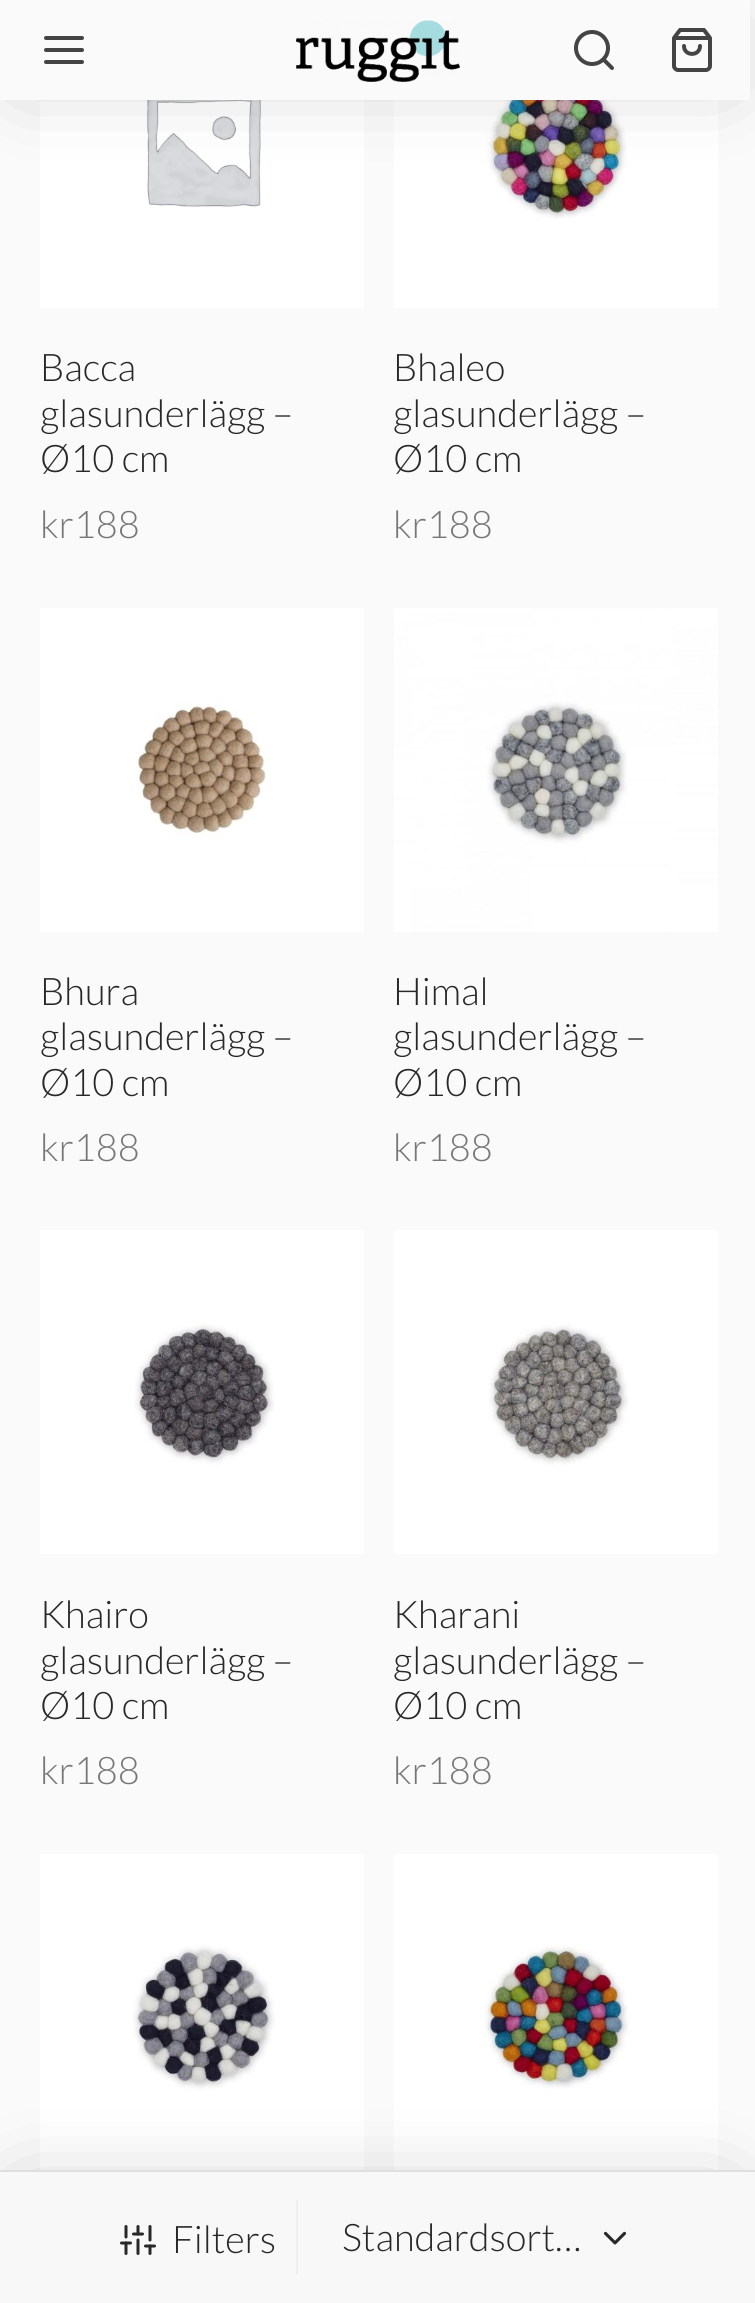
#include <cairo.h>
#include <math.h>
#include <stddef.h>


static void set_color(cairo_t *cr, unsigned color) {
    cairo_set_source_rgb(cr, (color >> 16) / 255.0, (color >> 8 & 255) / 255.0, (color & 255) / 255.0);
}

static void draw_text(cairo_t *cr, double x, double y, const char *s, const char *family, double size, int italic, int bold, unsigned color) {
    cairo_select_font_face(cr, family, italic ? CAIRO_FONT_SLANT_ITALIC : CAIRO_FONT_SLANT_NORMAL,
        bold ? CAIRO_FONT_WEIGHT_BOLD : CAIRO_FONT_WEIGHT_NORMAL);
    cairo_set_font_size(cr, size);
    set_color(cr, color);
    cairo_move_to(cr, x, y);
    cairo_show_text(cr, s);
}

static void fill_rect(cairo_t *cr, double x, double y, double w, double h, unsigned color) {
    set_color(cr, color);
    cairo_rectangle(cr, x, y, w, h);
    cairo_fill(cr);
}

static void rounded_rect(cairo_t *cr, double x, double y, double w, double h, double r) {
    cairo_new_sub_path(cr);
    cairo_arc(cr, x + w - r, y + h - r, r, 0, M_PI / 2);
    cairo_arc(cr, x + r, y + h - r, r, M_PI / 2, M_PI);
    cairo_arc(cr, x + r, y + r, r, M_PI, 1.5 * M_PI);
    cairo_arc(cr, x + w - r, y + r, r, 1.5 * M_PI, 2 * M_PI);
    cairo_close_path(cr);
}

static void draw_shadow(cairo_t *cr, double x, double y, double w, double h, double r, double blur, double alpha) {
    cairo_push_group_with_content(cr, CAIRO_CONTENT_ALPHA);
    cairo_set_operator(cr, CAIRO_OPERATOR_SOURCE);
    for (int i = 15; i >= -15 && fmin(w, h) + blur * i / 3 > 0; i -= 2) {
        double e = blur * i / 6;
        cairo_set_source_rgba(cr, 0, 0, 0, alpha * erfc((i - 1) / 8.5) / 2);
        rounded_rect(cr, x - e, y - e, w + 2 * e, h + 2 * e, fmax(0, fmin(r + e + blur * .6, fmin(w, h) / 2 + e)));
        cairo_fill(cr);
    }
    cairo_pattern_t *soft = cairo_pop_group(cr);
    cairo_mask(cr, soft);
    cairo_pattern_destroy(soft);
}

static void draw_image(cairo_t *cr, const char *path, double x, double y, double w, double h) {
    cairo_surface_t *image = cairo_image_surface_create_from_png(path);
    cairo_save(cr);
    cairo_set_source_surface(cr, image, x, y);
    cairo_rectangle(cr, x, y, w, h);
    cairo_fill(cr);
    cairo_restore(cr);
    cairo_surface_destroy(image);
}

int main(void) {
    cairo_surface_t *surface = cairo_image_surface_create(CAIRO_FORMAT_RGB24, 755, 2303);
    cairo_t *cr = cairo_create(surface);
    cairo_font_options_t *options = cairo_font_options_create();
    cairo_font_options_set_hint_metrics(options, CAIRO_HINT_METRICS_OFF);
    cairo_font_options_set_hint_style(options, CAIRO_HINT_STYLE_NONE);
    cairo_set_font_options(cr, options);
    cairo_set_miter_limit(cr, 4);
    set_color(cr, 0xFAFAFA);
    cairo_paint(cr);
    draw_image(cr, "assets/img2.png", 40, 100, 324, 208);
    draw_image(cr, "assets/img3.png", 394, 100, 324, 208);
    set_color(cr, 0x000000);
    draw_shadow(cr, 36, 44, 676, 20, 0, 45, 0.3);
    fill_rect(cr, 0, 0, 750, 100, 0xFAFAFA);
    cairo_new_path(cr);
    cairo_move_to(cr, 46, 50);
    cairo_line_to(cr, 82, 50);
    cairo_move_to(cr, 46, 38);
    cairo_line_to(cr, 82, 38);
    cairo_move_to(cr, 46, 62);
    cairo_line_to(cr, 82, 62);
    set_color(cr, 0x444444);
    cairo_set_line_width(cr, 4);
    cairo_set_line_cap(cr, CAIRO_LINE_CAP_ROUND);
    cairo_set_line_join(cr, CAIRO_LINE_JOIN_ROUND);
    cairo_stroke(cr);
    draw_image(cr, "assets/img1.png", 296, 20, 164, 62);
    cairo_arc(cr, 592, 48, 16, 0, 2 * M_PI);
    cairo_set_line_cap(cr, CAIRO_LINE_CAP_BUTT);
    cairo_set_line_join(cr, CAIRO_LINE_JOIN_MITER);
    cairo_stroke(cr);
    cairo_new_path(cr);
    cairo_move_to(cr, 612, 68);
    cairo_line_to(cr, 603.5, 59.5);
    cairo_set_line_cap(cr, CAIRO_LINE_CAP_ROUND);
    cairo_set_line_join(cr, CAIRO_LINE_JOIN_ROUND);
    cairo_stroke(cr);
    cairo_new_path(cr);
    cairo_move_to(cr, 680, 30);
    cairo_line_to(cr, 674, 38);
    cairo_line_to(cr, 674, 66);
    cairo_curve_to(cr, 674, 68, 676, 70, 678, 70);
    cairo_line_to(cr, 706, 70);
    cairo_curve_to(cr, 708, 70, 710, 68, 710, 66);
    cairo_line_to(cr, 710, 38);
    cairo_line_to(cr, 704, 30);
    cairo_close_path(cr);
    cairo_move_to(cr, 674, 38);
    cairo_line_to(cr, 710, 38);
    cairo_move_to(cr, 700, 46);
    cairo_curve_to(cr, 700, 56.5, 684, 56.5, 684, 46);
    cairo_stroke(cr);
    draw_text(cr, 40, 381, "Bacca", "Lato Light", 38, 0, 0, 0x282828);
    draw_text(cr, 40, 427, "glasunderlägg –", "Lato Light", 38, 0, 0, 0x282828);
    draw_text(cr, 40, 472, "Ø10 cm", "Lato Light", 38, 0, 0, 0x282828);
    draw_text(cr, 40, 538, "kr188", "Lato Light", 38, 0, 0, 0x777777);
    draw_text(cr, 393, 381, "Bhaleo", "Lato Light", 38, 0, 0, 0x282828);
    draw_text(cr, 393, 427, "glasunderlägg –", "Lato Light", 38, 0, 0, 0x282828);
    draw_text(cr, 393, 472, "Ø10 cm", "Lato Light", 38, 0, 0, 0x282828);
    draw_text(cr, 393, 538, "kr188", "Lato Light", 38, 0, 0, 0x777777);
    draw_image(cr, "assets/img4.png", 40, 608, 324, 324);
    draw_text(cr, 40, 1005, "Bhura", "Lato Light", 38, 0, 0, 0x282828);
    draw_text(cr, 40, 1050, "glasunderlägg –", "Lato Light", 38, 0, 0, 0x282828);
    draw_text(cr, 40, 1096, "Ø10 cm", "Lato Light", 38, 0, 0, 0x282828);
    draw_text(cr, 40, 1161, "kr188", "Lato Light", 38, 0, 0, 0x777777);
    draw_image(cr, "assets/img5.png", 394, 608, 324, 324);
    draw_text(cr, 393, 1005, "Himal", "Lato Light", 38, 0, 0, 0x282828);
    draw_text(cr, 393, 1050, "glasunderlägg –", "Lato Light", 38, 0, 0, 0x282828);
    draw_text(cr, 393, 1096, "Ø10 cm", "Lato Light", 38, 0, 0, 0x282828);
    draw_text(cr, 393, 1161, "kr188", "Lato Light", 38, 0, 0, 0x777777);
    draw_image(cr, "assets/img6.png", 40, 1230, 324, 324);
    draw_text(cr, 40, 1628, "Khairo", "Lato Light", 38, 0, 0, 0x282828);
    draw_text(cr, 40, 1674, "glasunderlägg –", "Lato Light", 38, 0, 0, 0x282828);
    draw_text(cr, 40, 1719, "Ø10 cm", "Lato Light", 38, 0, 0, 0x282828);
    draw_text(cr, 40, 1784, "kr188", "Lato Light", 38, 0, 0, 0x777777);
    draw_image(cr, "assets/img7.png", 394, 1230, 324, 324);
    draw_text(cr, 393, 1628, "Kharani", "Lato Light", 38, 0, 0, 0x282828);
    draw_text(cr, 393, 1674, "glasunderlägg –", "Lato Light", 38, 0, 0, 0x282828);
    draw_text(cr, 393, 1719, "Ø10 cm", "Lato Light", 38, 0, 0, 0x282828);
    draw_text(cr, 393, 1784, "kr188", "Lato Light", 38, 0, 0, 0x777777);
    draw_image(cr, "assets/img8.png", 40, 1854, 324, 316);
    draw_image(cr, "assets/img9.png", 394, 1854, 324, 316);
    set_color(cr, 0x000000);
    draw_shadow(cr, 26, 2204, 696, 74, 0, 45, 0.3);
    fill_rect(cr, 0, 2172, 755, 131, 0xF8F8F8);
    fill_rect(cr, 0, 2170, 755, 2, 0xDFDFDF);
    fill_rect(cr, 296, 2200, 2, 74, 0xEEEEEE);
    draw_image(cr, "assets/img10.png", 120, 2225, 36, 30);
    draw_text(cr, 172, 2253, "Filters", "Lato Light", 38, 0, 0, 0x282828);
    draw_text(cr, 342, 2251, "Standardsort…", "Lato Light", 38, 0, 0, 0x282828);
    draw_image(cr, "assets/img11.png", 603, 2231, 24, 14);
    cairo_surface_write_to_png(surface, "output.png");
    cairo_font_options_destroy(options);
    cairo_destroy(cr);
    cairo_surface_destroy(surface);
    return 0;
}
